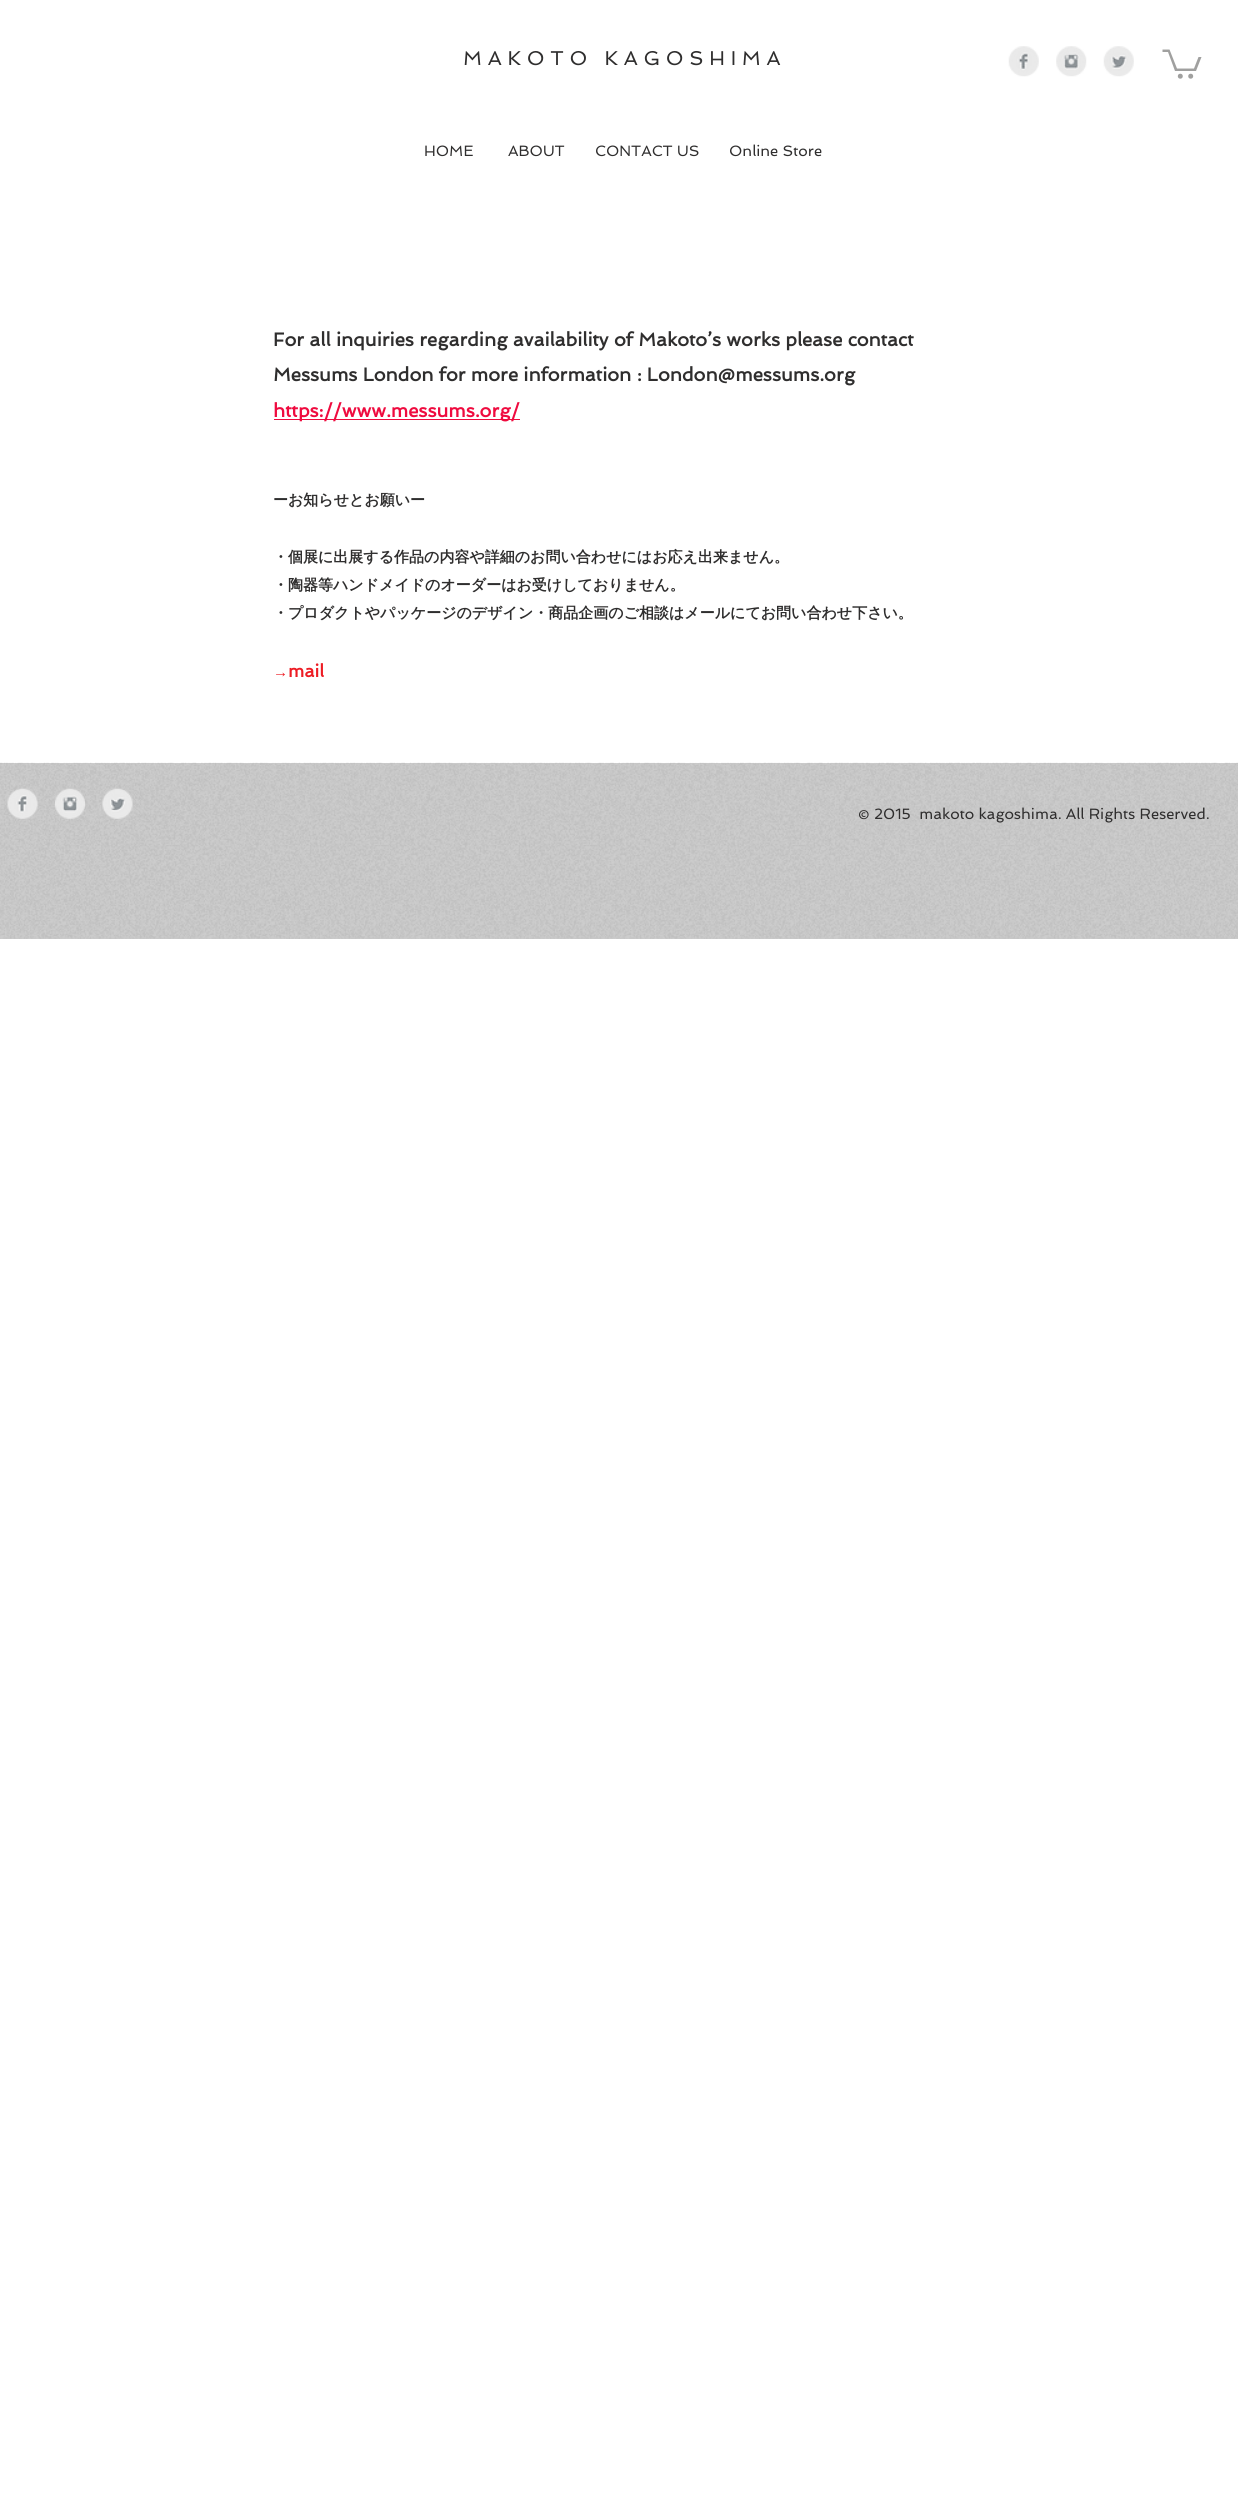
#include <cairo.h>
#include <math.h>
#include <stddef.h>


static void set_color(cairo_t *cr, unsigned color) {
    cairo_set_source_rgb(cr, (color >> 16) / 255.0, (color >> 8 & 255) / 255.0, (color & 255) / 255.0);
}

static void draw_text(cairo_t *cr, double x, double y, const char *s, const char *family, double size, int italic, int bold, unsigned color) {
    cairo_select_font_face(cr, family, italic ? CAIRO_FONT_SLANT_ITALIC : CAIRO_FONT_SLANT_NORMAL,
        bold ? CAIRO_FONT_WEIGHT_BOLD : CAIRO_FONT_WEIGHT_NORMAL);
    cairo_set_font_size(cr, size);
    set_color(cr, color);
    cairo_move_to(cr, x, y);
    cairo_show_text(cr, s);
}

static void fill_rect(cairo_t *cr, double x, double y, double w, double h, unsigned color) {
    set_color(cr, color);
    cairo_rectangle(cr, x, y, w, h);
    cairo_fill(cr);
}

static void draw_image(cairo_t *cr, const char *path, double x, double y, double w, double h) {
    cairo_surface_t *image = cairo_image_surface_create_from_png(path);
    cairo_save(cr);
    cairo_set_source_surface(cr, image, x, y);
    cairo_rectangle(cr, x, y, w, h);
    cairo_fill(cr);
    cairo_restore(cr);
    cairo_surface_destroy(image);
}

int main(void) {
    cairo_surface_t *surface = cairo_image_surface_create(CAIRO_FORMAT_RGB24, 1238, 2512);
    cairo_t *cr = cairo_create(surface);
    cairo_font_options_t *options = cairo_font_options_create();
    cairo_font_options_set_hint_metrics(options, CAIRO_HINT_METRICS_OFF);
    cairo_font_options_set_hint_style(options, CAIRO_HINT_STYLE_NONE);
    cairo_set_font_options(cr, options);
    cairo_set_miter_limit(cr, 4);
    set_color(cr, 0xFFFFFF);
    cairo_paint(cr);
    draw_text(cr, 463, 65, "M A K O T O   K A G O S H I M A", "Spinnaker", 20, 0, 0, 0x2F2E2E);
    draw_image(cr, "assets/img1.png", 1008, 46, 31, 31);
    draw_image(cr, "assets/img2.png", 1056, 46, 31, 31);
    draw_image(cr, "assets/img3.png", 1103, 46, 31, 31);
    set_color(cr, 0xA0A09F);
    cairo_new_path(cr);
    cairo_move_to(cr, 1201.5, 57);
    cairo_line_to(cr, 1196, 71);
    cairo_line_to(cr, 1175, 71);
    cairo_line_to(cr, 1168, 52);
    cairo_line_to(cr, 1162.5, 52);
    cairo_line_to(cr, 1162.5, 49.5);
    cairo_line_to(cr, 1169.5, 49.5);
    cairo_line_to(cr, 1177, 68.5);
    cairo_line_to(cr, 1194, 68.5);
    cairo_line_to(cr, 1198.5, 57);
    cairo_fill(cr);
    cairo_arc(cr, 1190.7, 76.2, 2.5, 0, 2 * M_PI);
    cairo_fill(cr);
    cairo_arc(cr, 1180.3, 76.2, 2.5, 0, 2 * M_PI);
    cairo_fill(cr);
    draw_text(cr, 424, 156, "HOME", "Spinnaker", 15, 0, 0, 0x2F2E2E);
    draw_text(cr, 508, 156, "ABOUT", "Spinnaker", 15, 0, 0, 0x2F2E2E);
    draw_text(cr, 595, 156, "CONTACT US", "Spinnaker", 15, 0, 0, 0x2F2E2E);
    draw_text(cr, 729, 156, "Online Store", "Spinnaker", 15, 0, 0, 0x2F2E2E);
    draw_text(cr, 273, 346, "For all inquiries regarding availability of Makoto’s works please contact", "Spinnaker", 18.75, 0, 1, 0x2F2E2E);
    draw_text(cr, 273, 381, "Messums London for more information : London@messums.org", "Spinnaker", 18.75, 0, 1, 0x2F2E2E);
    fill_rect(cr, 274, 419, 246, 1, 0xEF0B3F);
    draw_text(cr, 273, 417, "https://www.messums.org/", "Spinnaker", 18.75, 0, 1, 0xEF0B3F);
    draw_text(cr, 273, 505, "ーお知らせとお願いー", "WenQuanYi Zen Hei", 15, 0, 1, 0x2F2E2E);
    draw_text(cr, 273, 562, "・個展に出展する作品の内容や詳細のお問い合わせにはお応え出来ません。", "WenQuanYi Zen Hei", 15, 0, 1, 0x2F2E2E);
    draw_text(cr, 273, 590, "・陶器等ハンドメイドのオーダーはお受けしておりません。", "WenQuanYi Zen Hei", 15, 0, 1, 0x2F2E2E);
    draw_text(cr, 273, 618, "・プロダクトやパッケージのデザイン・商品企画のご相談はメールにてお問い合わせ下さい。", "WenQuanYi Zen Hei", 15, 0, 1, 0x2F2E2E);
    draw_text(cr, 273, 677, "→", "Liberation Sans", 15, 0, 1, 0xED1C24);
    draw_text(cr, 288, 677, "mail", "Spinnaker", 17.5, 0, 1, 0xED1C24);
    fill_rect(cr, 0, 763, 1238, 176, 0xCCCCCC);
    draw_image(cr, "assets/img4.png", 0, 762, 1238, 177);
    draw_image(cr, "assets/img5.png", 7, 788, 31, 31);
    draw_image(cr, "assets/img6.png", 55, 788, 30, 31);
    draw_image(cr, "assets/img7.png", 102, 788, 31, 31);
    draw_text(cr, 858, 819, "© 2015  makoto kagoshima. All Rights Reserved.", "Spinnaker", 15, 0, 0, 0x2F2E2E);
    cairo_surface_write_to_png(surface, "output.png");
    cairo_font_options_destroy(options);
    cairo_destroy(cr);
    cairo_surface_destroy(surface);
    return 0;
}
